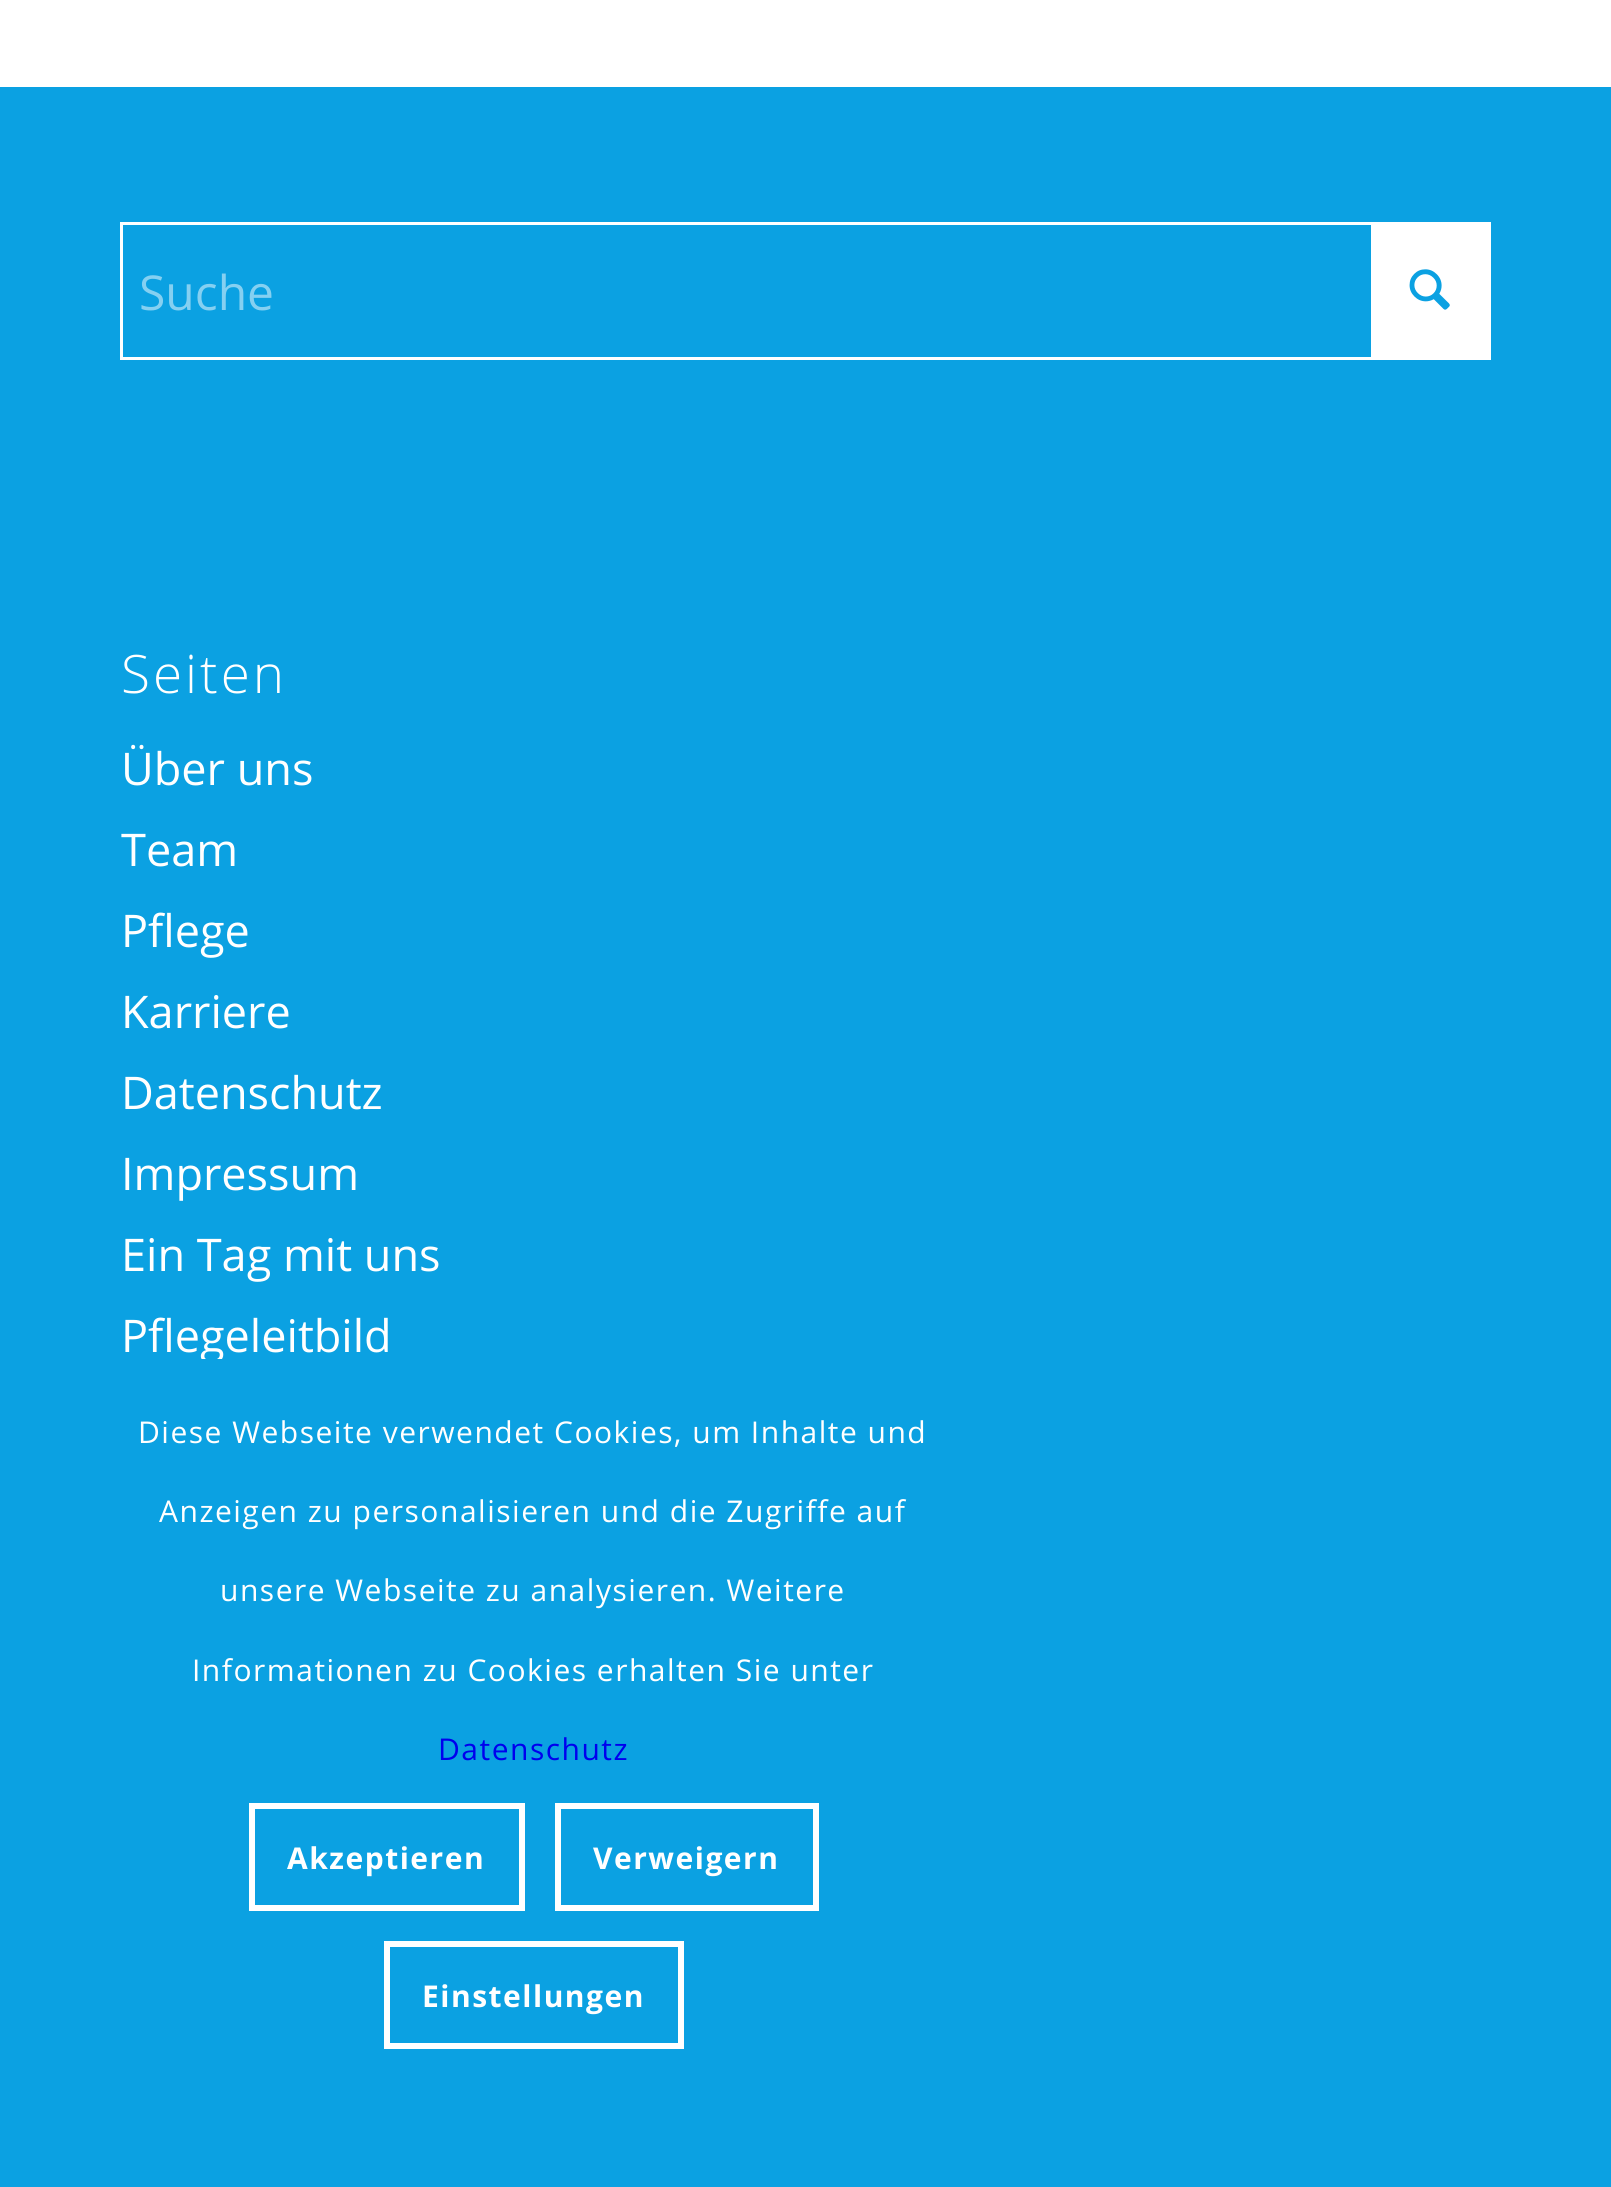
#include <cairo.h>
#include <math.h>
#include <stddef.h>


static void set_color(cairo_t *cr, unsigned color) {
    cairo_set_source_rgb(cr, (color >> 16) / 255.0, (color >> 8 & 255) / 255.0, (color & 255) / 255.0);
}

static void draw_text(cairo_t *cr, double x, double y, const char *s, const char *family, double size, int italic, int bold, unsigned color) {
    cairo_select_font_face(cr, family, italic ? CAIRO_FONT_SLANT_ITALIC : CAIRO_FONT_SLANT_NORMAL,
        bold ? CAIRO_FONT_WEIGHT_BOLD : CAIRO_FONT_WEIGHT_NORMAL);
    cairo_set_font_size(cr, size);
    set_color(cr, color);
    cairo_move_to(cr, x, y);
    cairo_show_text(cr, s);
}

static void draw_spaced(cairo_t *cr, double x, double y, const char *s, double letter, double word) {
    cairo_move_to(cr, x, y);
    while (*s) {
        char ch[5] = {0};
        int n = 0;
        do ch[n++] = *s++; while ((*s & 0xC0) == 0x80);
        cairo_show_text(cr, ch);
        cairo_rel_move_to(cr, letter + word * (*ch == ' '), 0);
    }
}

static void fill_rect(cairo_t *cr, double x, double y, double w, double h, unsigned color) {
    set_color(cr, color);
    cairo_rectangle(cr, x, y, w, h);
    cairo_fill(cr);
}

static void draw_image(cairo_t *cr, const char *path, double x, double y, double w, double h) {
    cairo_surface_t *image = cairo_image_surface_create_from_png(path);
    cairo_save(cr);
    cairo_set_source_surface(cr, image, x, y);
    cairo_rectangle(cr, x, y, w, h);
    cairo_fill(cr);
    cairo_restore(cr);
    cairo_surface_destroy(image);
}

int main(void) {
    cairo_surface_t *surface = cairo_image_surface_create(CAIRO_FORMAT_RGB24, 1611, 2187);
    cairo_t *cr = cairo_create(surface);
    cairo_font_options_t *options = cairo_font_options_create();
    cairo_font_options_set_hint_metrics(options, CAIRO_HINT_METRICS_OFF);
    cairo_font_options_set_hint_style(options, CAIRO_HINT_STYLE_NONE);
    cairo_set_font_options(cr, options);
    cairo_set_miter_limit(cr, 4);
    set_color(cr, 0xFFFFFF);
    cairo_paint(cr);
    fill_rect(cr, 0, 87, 1611, 2100, 0x0BA1E2);
    cairo_rectangle(cr, 121.5, 223.5, 1368, 135);
    set_color(cr, 0xFFFFFF);
    cairo_set_line_width(cr, 3);
    cairo_stroke(cr);
    fill_rect(cr, 1371, 225, 117, 132, 0xFFFFFF);
    draw_text(cr, 139, 310, "Suche", "Open Sans", 48, 0, 0, 0x85D0F1);
    draw_image(cr, "assets/img1.png", 1409, 269, 41, 41);
    cairo_select_font_face(cr, "Open Sans Light", CAIRO_FONT_SLANT_NORMAL, CAIRO_FONT_WEIGHT_NORMAL);
    cairo_set_font_size(cr, 53);
    set_color(cr, 0xFFFFFF);
    draw_spaced(cr, 121, 693, "Seiten", 3, 0);
    draw_text(cr, 121, 785, "Über uns", "Open Sans", 45, 0, 0, 0xFFFFFF);
    draw_text(cr, 121, 866, "Team", "Open Sans", 45, 0, 0, 0xFFFFFF);
    draw_text(cr, 121, 947, "Pflege", "Open Sans", 45, 0, 0, 0xFFFFFF);
    draw_text(cr, 121, 1028, "Karriere", "Open Sans", 45, 0, 0, 0xFFFFFF);
    draw_text(cr, 121, 1109, "Datenschutz", "Open Sans", 45, 0, 0, 0xFFFFFF);
    draw_text(cr, 121, 1190, "Impressum", "Open Sans", 45, 0, 0, 0xFFFFFF);
    draw_text(cr, 121, 1271, "Ein Tag mit uns", "Open Sans", 45, 0, 0, 0xFFFFFF);
    draw_text(cr, 121, 1352, "Pflegeleitbild", "Open Sans", 45, 0, 0, 0xFFFFFF);
    fill_rect(cr, 201, 1359, 21, 4, 0x0BA1E2);
    cairo_set_font_size(cr, 30);
    set_color(cr, 0xFFFFFF);
    draw_spaced(cr, 138, 1443, "Diese Webseite verwendet Cookies, um Inhalte und", 1.5, 0);
    draw_spaced(cr, 159, 1522, "Anzeigen zu personalisieren und die Zugriffe auf", 1.5, 0);
    draw_spaced(cr, 220, 1601, "unsere Webseite zu analysieren. Weitere", 1.5, 0);
    draw_spaced(cr, 192, 1681, "Informationen zu Cookies erhalten Sie unter", 1.5, 0);
    set_color(cr, 0x0000EE);
    draw_spaced(cr, 438, 1760, "Datenschutz", 1.5, 0);
    cairo_rectangle(cr, 252, 1806, 270, 102);
    set_color(cr, 0xFFFFFF);
    cairo_set_line_width(cr, 6);
    cairo_stroke(cr);
    cairo_select_font_face(cr, "Open Sans", CAIRO_FONT_SLANT_NORMAL, CAIRO_FONT_WEIGHT_BOLD);
    draw_spaced(cr, 287, 1869, "Akzeptieren", 1.5, 0);
    cairo_rectangle(cr, 558, 1806, 258, 102);
    cairo_stroke(cr);
    draw_spaced(cr, 593, 1869, "Verweigern", 1.5, 0);
    cairo_rectangle(cr, 387, 1944, 294, 102);
    cairo_stroke(cr);
    draw_spaced(cr, 422, 2007, "Einstellungen", 1.5, 0);
    cairo_surface_write_to_png(surface, "output.png");
    cairo_font_options_destroy(options);
    cairo_destroy(cr);
    cairo_surface_destroy(surface);
    return 0;
}
